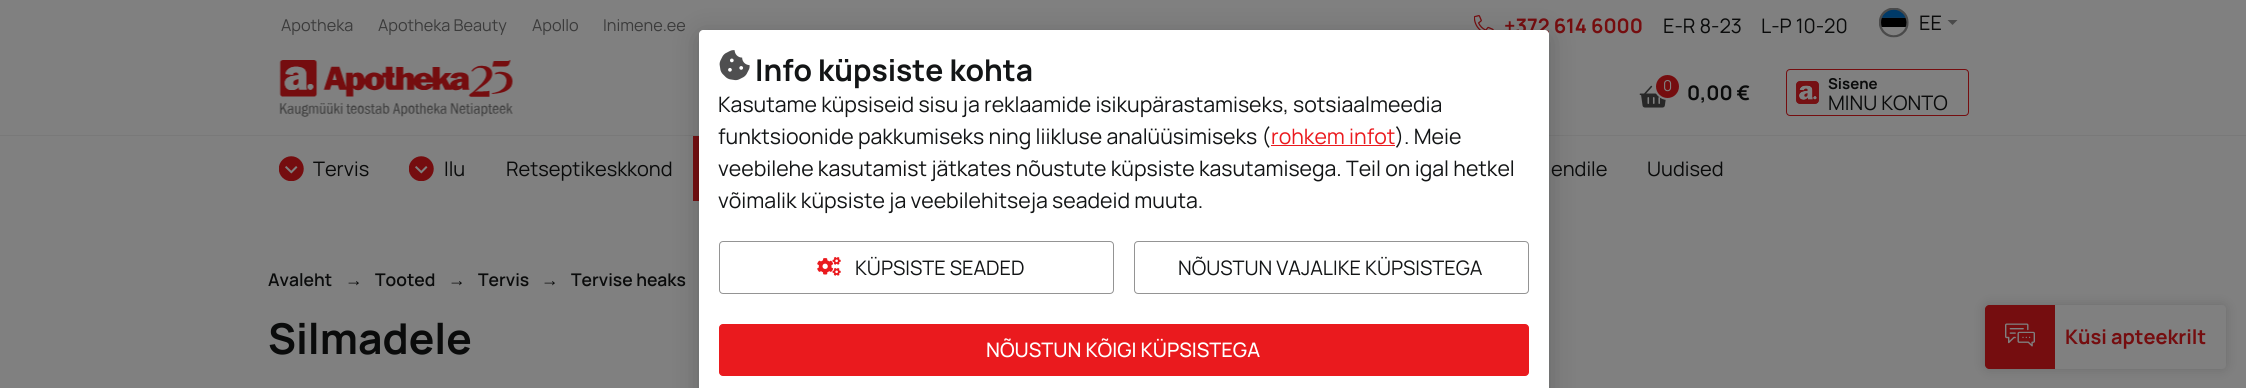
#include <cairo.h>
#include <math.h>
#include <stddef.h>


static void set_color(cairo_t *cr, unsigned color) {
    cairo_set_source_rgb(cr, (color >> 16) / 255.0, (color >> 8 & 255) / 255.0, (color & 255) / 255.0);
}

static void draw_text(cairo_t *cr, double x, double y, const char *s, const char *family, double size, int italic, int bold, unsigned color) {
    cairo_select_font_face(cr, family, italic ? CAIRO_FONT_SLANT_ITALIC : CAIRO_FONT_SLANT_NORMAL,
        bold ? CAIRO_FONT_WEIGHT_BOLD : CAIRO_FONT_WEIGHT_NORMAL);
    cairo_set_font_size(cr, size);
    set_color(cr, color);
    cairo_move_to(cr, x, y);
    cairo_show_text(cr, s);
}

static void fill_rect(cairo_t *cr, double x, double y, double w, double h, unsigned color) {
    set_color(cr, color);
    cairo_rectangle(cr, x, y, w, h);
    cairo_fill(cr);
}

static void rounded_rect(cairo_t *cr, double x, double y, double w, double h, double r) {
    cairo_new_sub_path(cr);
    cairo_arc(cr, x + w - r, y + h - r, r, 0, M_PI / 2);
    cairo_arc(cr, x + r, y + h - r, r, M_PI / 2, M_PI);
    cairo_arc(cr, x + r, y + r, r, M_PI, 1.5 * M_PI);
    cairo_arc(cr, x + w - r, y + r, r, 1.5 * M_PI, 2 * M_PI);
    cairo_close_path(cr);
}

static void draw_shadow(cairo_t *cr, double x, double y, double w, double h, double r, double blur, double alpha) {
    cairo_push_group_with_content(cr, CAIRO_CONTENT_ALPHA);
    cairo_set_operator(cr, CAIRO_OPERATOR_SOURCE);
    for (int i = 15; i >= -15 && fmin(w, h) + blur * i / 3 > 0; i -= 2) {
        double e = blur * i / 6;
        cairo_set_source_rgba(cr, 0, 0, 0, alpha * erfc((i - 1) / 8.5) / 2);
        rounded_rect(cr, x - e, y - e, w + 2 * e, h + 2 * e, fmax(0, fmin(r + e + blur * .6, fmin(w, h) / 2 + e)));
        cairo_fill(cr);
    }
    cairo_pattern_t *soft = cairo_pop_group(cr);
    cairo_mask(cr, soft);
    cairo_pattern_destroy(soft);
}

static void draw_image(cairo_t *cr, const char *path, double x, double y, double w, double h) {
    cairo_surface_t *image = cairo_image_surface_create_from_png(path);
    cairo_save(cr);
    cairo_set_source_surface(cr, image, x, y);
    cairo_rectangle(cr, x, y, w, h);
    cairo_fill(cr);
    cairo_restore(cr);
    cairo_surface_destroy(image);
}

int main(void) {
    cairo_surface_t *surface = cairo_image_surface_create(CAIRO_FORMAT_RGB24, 2246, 388);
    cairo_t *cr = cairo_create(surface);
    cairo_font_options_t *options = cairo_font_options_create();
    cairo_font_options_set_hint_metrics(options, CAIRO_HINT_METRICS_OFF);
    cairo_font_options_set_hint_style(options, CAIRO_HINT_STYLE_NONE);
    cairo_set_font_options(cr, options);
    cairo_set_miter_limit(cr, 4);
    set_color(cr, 0x808080);
    cairo_paint(cr);
    draw_text(cr, 281, 31, "Apotheka", "Manrope", 16.25, 0, 0, 0x3B3B3B);
    draw_text(cr, 378, 31, "Apotheka Beauty", "Manrope", 16.25, 0, 0, 0x3B3B3B);
    draw_text(cr, 532, 31, "Apollo", "Manrope", 16.25, 0, 0, 0x3B3B3B);
    draw_text(cr, 603, 31, "Inimene.ee", "Manrope", 16.25, 0, 0, 0x3B3B3B);
    draw_image(cr, "assets/img1.png", 1474, 15, 20, 15);
    draw_text(cr, 1504, 33, "+372 614 6000", "Manrope", 20, 0, 1, 0x750D0F);
    draw_text(cr, 1663, 33, "E-R 8-23", "Manrope", 20, 0, 0, 0x0A0B0B);
    draw_text(cr, 1761, 33, "L-P 10-20", "Manrope", 20, 0, 0, 0x0A0B0B);
    draw_image(cr, "assets/img2.png", 1879, 8, 30, 30);
    draw_text(cr, 1919, 30, "EE", "Manrope", 20, 0, 0, 0x0A0B0B);
    set_color(cr, 0x4A4A4A);
    cairo_new_path(cr);
    cairo_move_to(cr, 1947.5, 20);
    cairo_line_to(cr, 1957.5, 20);
    cairo_line_to(cr, 1952.5, 25);
    cairo_close_path(cr);
    cairo_fill(cr);
    fill_rect(cr, 0, 135, 2246, 1, 0x797979);
    draw_image(cr, "assets/img3.png", 279, 60, 234, 57);
    draw_image(cr, "assets/img4.png", 1639, 85, 27, 23);
    cairo_arc(cr, 1667.5, 86.5, 12, 0, 2 * M_PI);
    set_color(cr, 0x808080);
    cairo_set_line_width(cr, 3);
    cairo_stroke(cr);
    set_color(cr, 0x750D0F);
    cairo_arc(cr, 1667.5, 86.5, 11.5, 0, 2 * M_PI);
    cairo_fill(cr);
    draw_text(cr, 1663, 91, "0", "Manrope", 15, 0, 0, 0x808080);
    draw_text(cr, 1687, 100, "0,00 €", "Manrope", 20, 0, 1, 0x0A0B0B);
    draw_image(cr, "assets/img5.png", 1796, 81, 23, 23);
    rounded_rect(cr, 1786.5, 69.5, 182, 46, 3.5);
    set_color(cr, 0x750D0F);
    cairo_set_line_width(cr, 1);
    cairo_stroke(cr);
    draw_text(cr, 1828, 89, "Sisene", "Manrope", 15, 0, 1, 0x0A0B0B);
    draw_text(cr, 1828, 110, "MINU KONTO", "Manrope", 20, 0, 0, 0x0A0B0B);
    draw_image(cr, "assets/img6.png", 279, 156, 25, 25);
    draw_text(cr, 313, 176, "Tervis", "Manrope", 20, 0, 0, 0x0A0B0B);
    draw_image(cr, "assets/img6.png", 409, 156, 25, 25);
    draw_text(cr, 444, 176, "Ilu", "Manrope", 20, 0, 0, 0x0A0B0B);
    draw_text(cr, 506, 176, "Retseptikeskkond", "Manrope", 20, 0, 0, 0x0A0B0B);
    fill_rect(cr, 693, 136, 6, 65, 0x750D0F);
    draw_text(cr, 1551, 176, "endile", "Manrope", 20, 0, 0, 0x0A0B0B);
    draw_text(cr, 1647, 176, "Uudised", "Manrope", 20, 0, 0, 0x0A0B0B);
    draw_text(cr, 268, 286, "Avaleht", "Manrope SemiBold", 17.5, 0, 0, 0x0A0B0B);
    draw_text(cr, 345, 286, "→", "Liberation Sans", 17.5, 0, 1, 0x0A0B0B);
    draw_text(cr, 375, 286, "Tooted", "Manrope SemiBold", 17.5, 0, 0, 0x0A0B0B);
    draw_text(cr, 448, 286, "→", "Liberation Sans", 17.5, 0, 1, 0x0A0B0B);
    draw_text(cr, 478, 286, "Tervis", "Manrope SemiBold", 17.5, 0, 0, 0x0A0B0B);
    draw_text(cr, 541, 286, "→", "Liberation Sans", 17.5, 0, 1, 0x0A0B0B);
    draw_text(cr, 571, 286, "Tervise heaks", "Manrope SemiBold", 17.5, 0, 0, 0x0A0B0B);
    draw_text(cr, 268, 354, "Silmadele", "Manrope", 42.5, 0, 1, 0x0A0B0B);
    set_color(cr, 0x000000);
    draw_shadow(cr, 1985, 305, 241, 64, 4, 6, 0.15);
    set_color(cr, 0x808080);
    rounded_rect(cr, 1985, 305, 241, 64, 4);
    cairo_fill(cr);
    set_color(cr, 0x750D0F);
    cairo_new_path(cr);
    cairo_move_to(cr, 1989, 305);
    cairo_line_to(cr, 2055, 305);
    cairo_line_to(cr, 2055, 369);
    cairo_line_to(cr, 1989, 369);
    cairo_curve_to(cr, 1987, 369, 1985, 367, 1985, 365);
    cairo_line_to(cr, 1985, 309);
    cairo_curve_to(cr, 1985, 307, 1987, 305, 1989, 305);
    cairo_close_path(cr);
    cairo_fill(cr);
    draw_image(cr, "assets/img7.png", 2005, 323, 30, 24);
    draw_text(cr, 2065, 344, "Küsi apteekrilt", "Manrope", 20, 0, 1, 0x750D0F);
    set_color(cr, 0x131516);
    draw_shadow(cr, 699, 35, 850, 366, 4, 12.5, 0.25);
    set_color(cr, 0xFFFFFF);
    cairo_new_path(cr);
    cairo_move_to(cr, 703, 30);
    cairo_line_to(cr, 1545, 30);
    cairo_curve_to(cr, 1547, 30, 1549, 32, 1549, 34);
    cairo_line_to(cr, 1549, 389);
    cairo_line_to(cr, 699, 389);
    cairo_line_to(cr, 699, 34);
    cairo_curve_to(cr, 699, 32, 701, 30, 703, 30);
    cairo_close_path(cr);
    cairo_fill(cr);
    draw_image(cr, "assets/img8.png", 719, 50, 31, 31);
    draw_text(cr, 755, 81, "Info küpsiste kohta", "Manrope", 30, 0, 1, 0x131516);
    draw_text(cr, 718, 112, "Kasutame küpsiseid sisu ja reklaamide isikupärastamiseks, sotsiaalmeedia", "Manrope", 21.25, 0, 0, 0x131516);
    draw_text(cr, 718, 144, "funktsioonide pakkumiseks ning liikluse analüüsimiseks (", "Manrope", 21.25, 0, 0, 0x131516);
    draw_text(cr, 1271, 144, "rohkem infot", "Manrope", 21.25, 0, 0, 0xEA1A1E);
    fill_rect(cr, 1271, 145, 124, 1, 0xEA1A1E);
    draw_text(cr, 1395, 144, "). Meie", "Manrope", 21.25, 0, 0, 0x131516);
    draw_text(cr, 718, 176, "veebilehe kasutamist jätkates nõustute küpsiste kasutamisega. Teil on igal hetkel", "Manrope", 21.25, 0, 0, 0x131516);
    draw_text(cr, 718, 208, "võimalik küpsiste ja veebilehitseja seadeid muuta.", "Manrope", 21.25, 0, 0, 0x131516);
    rounded_rect(cr, 719.5, 241.5, 394, 52, 3.5);
    set_color(cr, 0x949494);
    cairo_stroke(cr);
    draw_image(cr, "assets/img9.png", 817, 257, 24, 19);
    draw_text(cr, 855, 275, "KÜPSISTE SEADED", "Manrope", 20, 0, 0, 0x131516);
    rounded_rect(cr, 1134.5, 241.5, 394, 52, 3.5);
    set_color(cr, 0x949494);
    cairo_stroke(cr);
    draw_text(cr, 1178, 275, "NÕUSTUN VAJALIKE KÜPSISTEGA", "Manrope", 20, 0, 0, 0x131516);
    set_color(cr, 0xEA1A1E);
    rounded_rect(cr, 719.5, 324.5, 809, 51, 3.5);
    cairo_fill_preserve(cr);
    cairo_stroke(cr);
    draw_text(cr, 986, 357, "NÕUSTUN KÕIGI KÜPSISTEGA", "Manrope Medium", 20, 0, 0, 0xFFFFFF);
    cairo_surface_write_to_png(surface, "output.png");
    cairo_font_options_destroy(options);
    cairo_destroy(cr);
    cairo_surface_destroy(surface);
    return 0;
}
